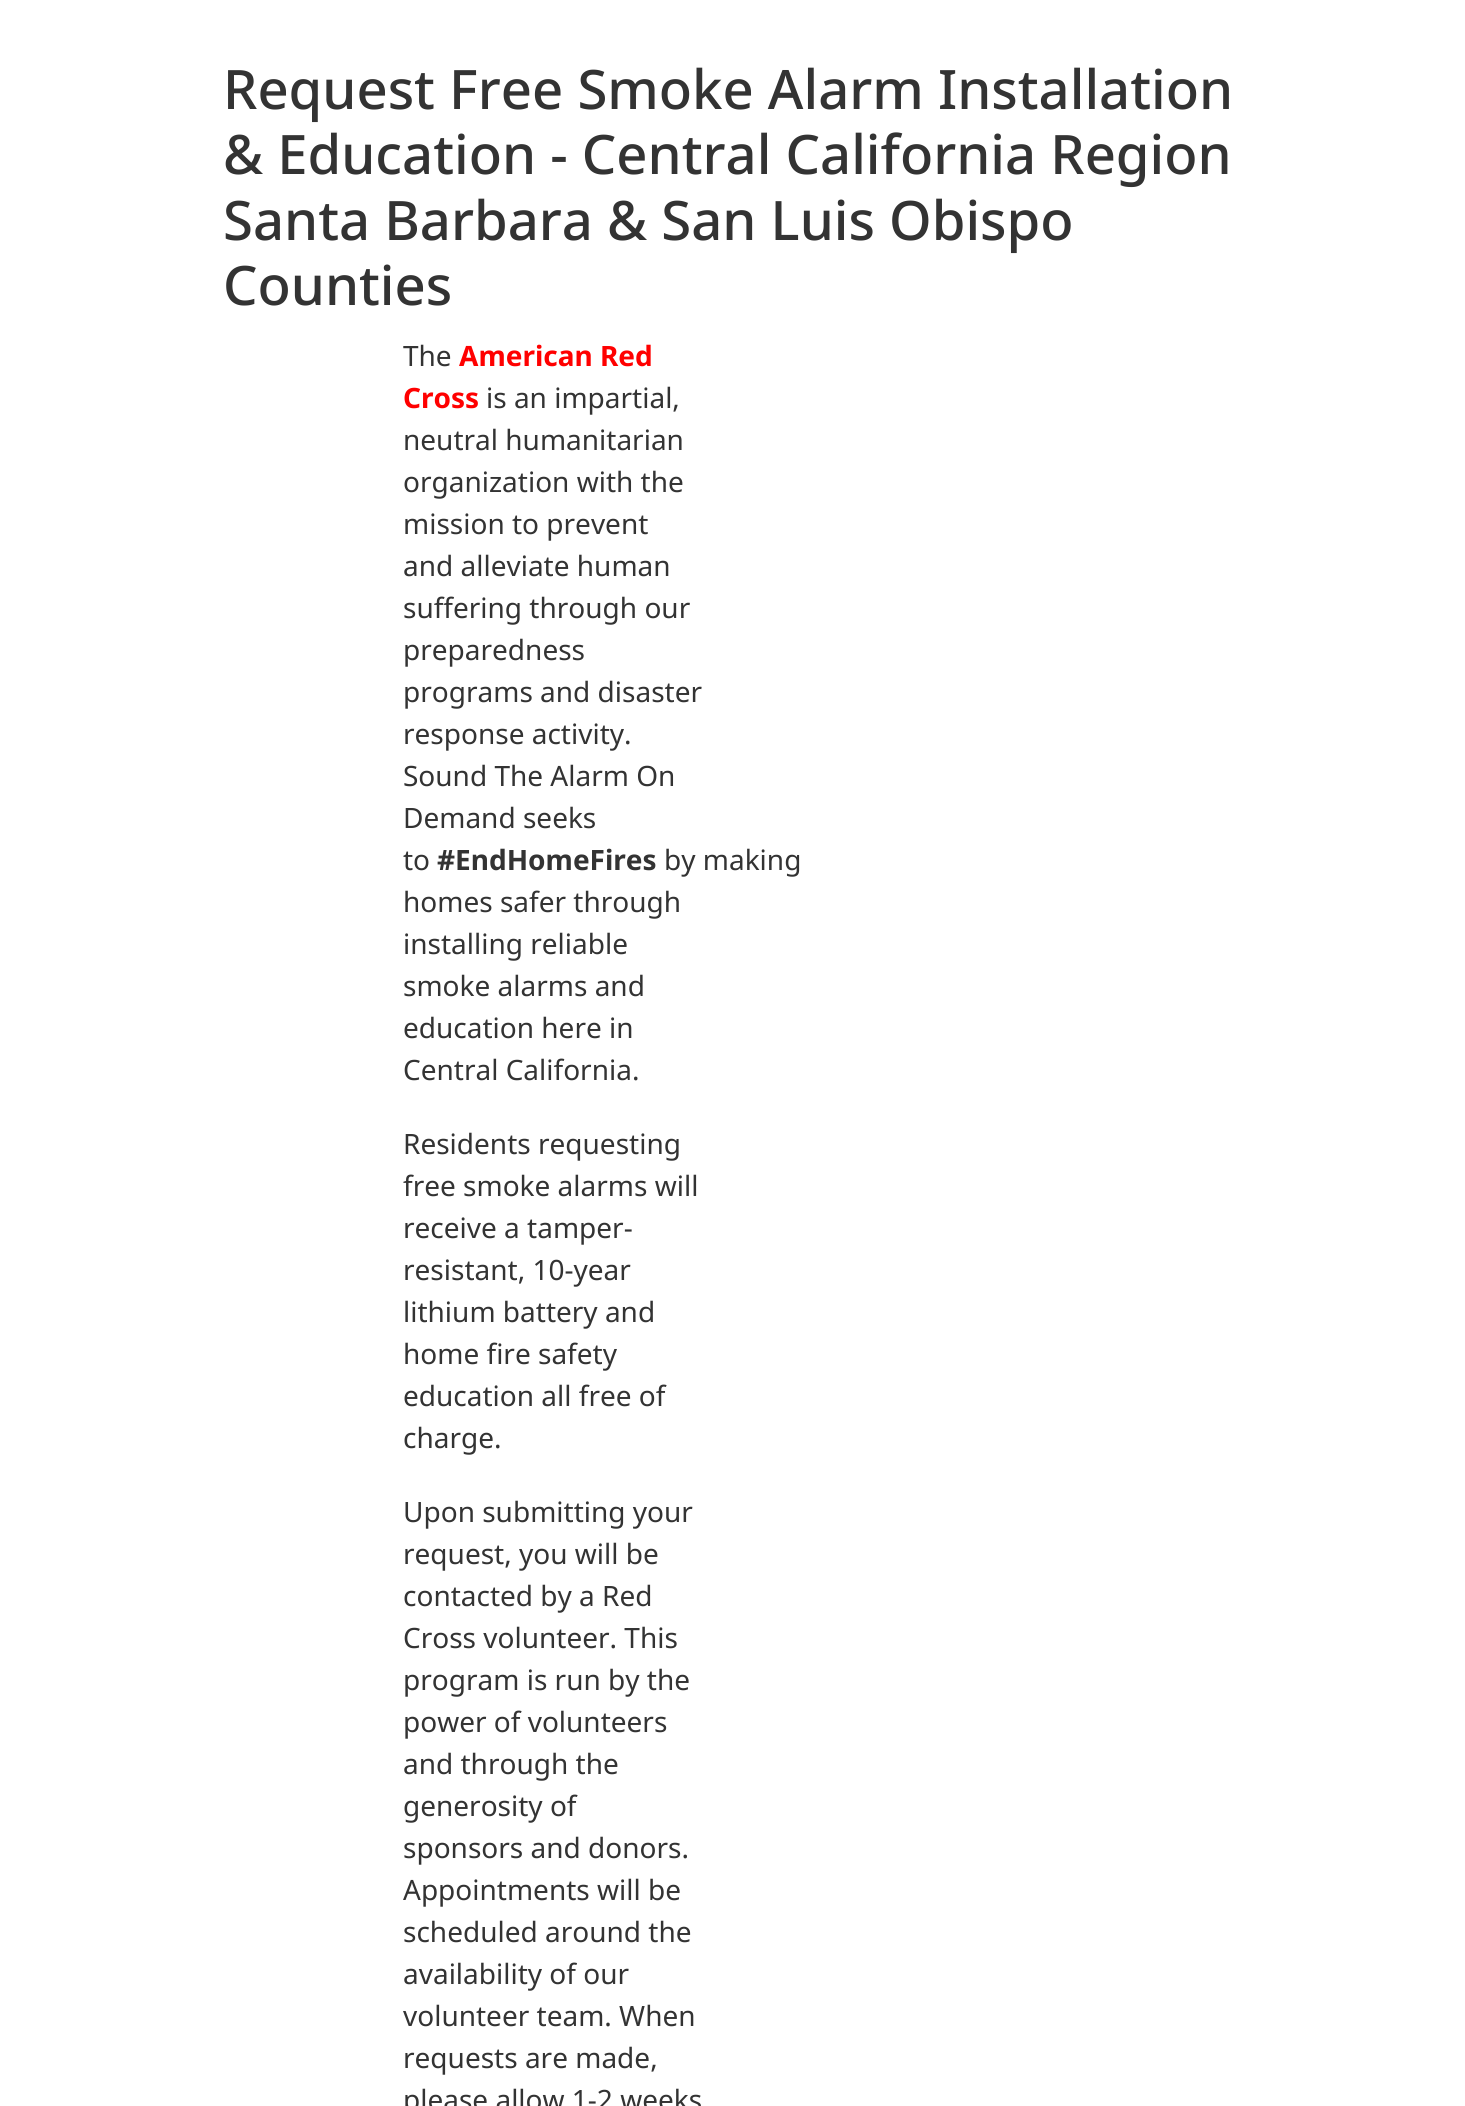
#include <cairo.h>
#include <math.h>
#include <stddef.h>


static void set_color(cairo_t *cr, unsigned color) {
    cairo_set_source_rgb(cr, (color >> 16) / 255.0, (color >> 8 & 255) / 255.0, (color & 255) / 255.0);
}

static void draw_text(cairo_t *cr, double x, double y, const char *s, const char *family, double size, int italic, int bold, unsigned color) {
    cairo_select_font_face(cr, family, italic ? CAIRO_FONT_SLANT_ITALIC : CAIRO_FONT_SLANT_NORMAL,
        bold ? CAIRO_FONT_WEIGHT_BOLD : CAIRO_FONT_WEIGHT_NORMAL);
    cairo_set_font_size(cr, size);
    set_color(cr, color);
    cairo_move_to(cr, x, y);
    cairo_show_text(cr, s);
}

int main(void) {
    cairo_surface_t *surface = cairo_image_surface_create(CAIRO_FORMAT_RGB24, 1465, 2106);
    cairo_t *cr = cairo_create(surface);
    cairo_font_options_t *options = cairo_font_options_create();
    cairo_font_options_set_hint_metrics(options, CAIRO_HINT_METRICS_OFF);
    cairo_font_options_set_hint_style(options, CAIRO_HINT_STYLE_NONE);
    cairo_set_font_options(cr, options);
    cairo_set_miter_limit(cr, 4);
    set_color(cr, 0xFFFFFF);
    cairo_paint(cr);
    draw_text(cr, 223, 109, "Request Free Smoke Alarm Installation", "Noto Sans Medium", 54.4, 0, 0, 0x333333);
    draw_text(cr, 223, 174, "& Education - Central California Region", "Noto Sans Medium", 54.4, 0, 0, 0x333333);
    draw_text(cr, 223, 240, "Santa Barbara & San Luis Obispo", "Noto Sans Medium", 54.4, 0, 0, 0x333333);
    draw_text(cr, 223, 305, "Counties", "Noto Sans Medium", 54.4, 0, 0, 0x333333);
    draw_text(cr, 403, 366, "The", "Noto Sans", 28, 0, 0, 0x333333);
    draw_text(cr, 459, 366, "American Red", "Noto Sans", 28, 0, 1, 0xFF0000);
    draw_text(cr, 403, 408, "Cross", "Noto Sans", 28, 0, 1, 0xFF0000);
    draw_text(cr, 486, 408, "is an impartial,", "Noto Sans", 28, 0, 0, 0x333333);
    draw_text(cr, 403, 450, "neutral humanitarian", "Noto Sans", 28, 0, 0, 0x333333);
    draw_text(cr, 403, 492, "organization with the", "Noto Sans", 28, 0, 0, 0x333333);
    draw_text(cr, 403, 534, "mission to prevent", "Noto Sans", 28, 0, 0, 0x333333);
    draw_text(cr, 403, 576, "and alleviate human", "Noto Sans", 28, 0, 0, 0x333333);
    draw_text(cr, 403, 618, "suffering through our", "Noto Sans", 28, 0, 0, 0x333333);
    draw_text(cr, 403, 660, "preparedness", "Noto Sans", 28, 0, 0, 0x333333);
    draw_text(cr, 403, 702, "programs and disaster", "Noto Sans", 28, 0, 0, 0x333333);
    draw_text(cr, 403, 744, "response activity.", "Noto Sans", 28, 0, 0, 0x333333);
    draw_text(cr, 403, 786, "Sound The Alarm On", "Noto Sans", 28, 0, 0, 0x333333);
    draw_text(cr, 403, 828, "Demand seeks", "Noto Sans", 28, 0, 0, 0x333333);
    draw_text(cr, 403, 870, "to", "Noto Sans", 28, 0, 0, 0x333333);
    draw_text(cr, 437, 870, "#EndHomeFires", "Noto Sans", 28, 0, 1, 0x333333);
    draw_text(cr, 664, 870, "by making", "Noto Sans", 28, 0, 0, 0x333333);
    draw_text(cr, 403, 912, "homes safer through", "Noto Sans", 28, 0, 0, 0x333333);
    draw_text(cr, 403, 954, "installing reliable", "Noto Sans", 28, 0, 0, 0x333333);
    draw_text(cr, 403, 996, "smoke alarms and", "Noto Sans", 28, 0, 0, 0x333333);
    draw_text(cr, 403, 1038, "education here in", "Noto Sans", 28, 0, 0, 0x333333);
    draw_text(cr, 403, 1080, "Central California.", "Noto Sans", 28, 0, 0, 0x333333);
    draw_text(cr, 403, 1154, "Residents requesting", "Noto Sans", 28, 0, 0, 0x333333);
    draw_text(cr, 403, 1196, "free smoke alarms will", "Noto Sans", 28, 0, 0, 0x333333);
    draw_text(cr, 403, 1238, "receive a tamper-", "Noto Sans", 28, 0, 0, 0x333333);
    draw_text(cr, 403, 1280, "resistant, 10-year", "Noto Sans", 28, 0, 0, 0x333333);
    draw_text(cr, 403, 1322, "lithium battery and", "Noto Sans", 28, 0, 0, 0x333333);
    draw_text(cr, 403, 1364, "home fire safety", "Noto Sans", 28, 0, 0, 0x333333);
    draw_text(cr, 403, 1406, "education all free of", "Noto Sans", 28, 0, 0, 0x333333);
    draw_text(cr, 403, 1448, "charge.", "Noto Sans", 28, 0, 0, 0x333333);
    draw_text(cr, 403, 1522, "Upon submitting your", "Noto Sans", 28, 0, 0, 0x333333);
    draw_text(cr, 403, 1564, "request, you will be", "Noto Sans", 28, 0, 0, 0x333333);
    draw_text(cr, 403, 1606, "contacted by a Red", "Noto Sans", 28, 0, 0, 0x333333);
    draw_text(cr, 403, 1648, "Cross volunteer. This", "Noto Sans", 28, 0, 0, 0x333333);
    draw_text(cr, 403, 1690, "program is run by the", "Noto Sans", 28, 0, 0, 0x333333);
    draw_text(cr, 403, 1732, "power of volunteers", "Noto Sans", 28, 0, 0, 0x333333);
    draw_text(cr, 403, 1774, "and through the", "Noto Sans", 28, 0, 0, 0x333333);
    draw_text(cr, 403, 1816, "generosity of", "Noto Sans", 28, 0, 0, 0x333333);
    draw_text(cr, 403, 1858, "sponsors and donors.", "Noto Sans", 28, 0, 0, 0x333333);
    draw_text(cr, 403, 1900, "Appointments will be", "Noto Sans", 28, 0, 0, 0x333333);
    draw_text(cr, 403, 1942, "scheduled around the", "Noto Sans", 28, 0, 0, 0x333333);
    draw_text(cr, 403, 1984, "availability of our", "Noto Sans", 28, 0, 0, 0x333333);
    draw_text(cr, 403, 2026, "volunteer team. When", "Noto Sans", 28, 0, 0, 0x333333);
    draw_text(cr, 403, 2068, "requests are made,", "Noto Sans", 28, 0, 0, 0x333333);
    draw_text(cr, 403, 2110, "please allow 1-2 weeks", "Noto Sans", 28, 0, 0, 0x333333);
    cairo_surface_write_to_png(surface, "output.png");
    cairo_font_options_destroy(options);
    cairo_destroy(cr);
    cairo_surface_destroy(surface);
    return 0;
}
